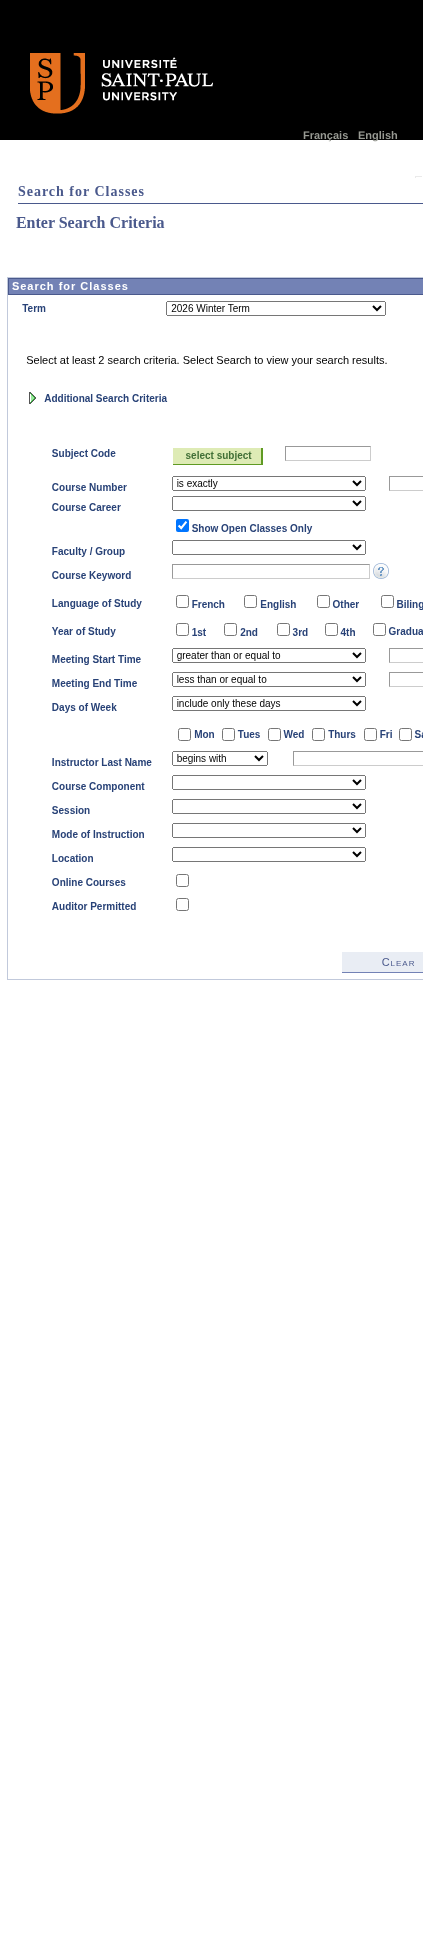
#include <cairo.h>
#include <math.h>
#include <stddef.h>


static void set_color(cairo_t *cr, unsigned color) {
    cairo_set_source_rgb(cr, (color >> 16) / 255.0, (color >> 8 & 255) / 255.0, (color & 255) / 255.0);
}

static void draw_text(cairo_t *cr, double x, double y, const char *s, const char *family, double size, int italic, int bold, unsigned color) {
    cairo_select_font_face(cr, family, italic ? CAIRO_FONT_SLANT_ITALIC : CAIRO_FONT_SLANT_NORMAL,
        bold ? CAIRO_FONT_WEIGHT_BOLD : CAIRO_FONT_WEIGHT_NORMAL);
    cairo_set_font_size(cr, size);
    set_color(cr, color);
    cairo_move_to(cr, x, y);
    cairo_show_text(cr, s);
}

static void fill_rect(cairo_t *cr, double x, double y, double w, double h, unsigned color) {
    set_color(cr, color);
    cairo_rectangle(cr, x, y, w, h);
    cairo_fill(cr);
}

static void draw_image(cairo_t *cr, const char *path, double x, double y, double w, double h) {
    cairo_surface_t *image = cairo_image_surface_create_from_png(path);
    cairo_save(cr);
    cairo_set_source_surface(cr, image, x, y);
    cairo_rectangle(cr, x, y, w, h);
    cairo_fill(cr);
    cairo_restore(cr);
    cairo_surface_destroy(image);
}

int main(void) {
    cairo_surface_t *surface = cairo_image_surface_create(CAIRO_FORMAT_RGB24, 423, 1952);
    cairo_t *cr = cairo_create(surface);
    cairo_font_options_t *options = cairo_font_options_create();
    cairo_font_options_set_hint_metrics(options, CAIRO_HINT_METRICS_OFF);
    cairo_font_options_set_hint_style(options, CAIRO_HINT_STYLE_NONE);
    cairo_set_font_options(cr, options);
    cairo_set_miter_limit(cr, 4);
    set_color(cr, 0xFFFFFF);
    cairo_paint(cr);
    fill_rect(cr, 0, 0, 423, 140, 0x000000);
    draw_image(cr, "assets/img1.png", 30, 53, 183, 61);
    draw_text(cr, 303, 139, "Français", "Liberation Sans", 11, 0, 1, 0x989A93);
    draw_text(cr, 358, 139, "English", "Liberation Sans", 11, 0, 1, 0x989A93);
    fill_rect(cr, 415, 176, 7, 1, 0xEAEAEA);
    fill_rect(cr, 415, 176, 1, 2, 0xEAEAEA);
    draw_image(cr, "assets/img2.png", 7, 186, 416, 794);
    cairo_surface_write_to_png(surface, "output.png");
    cairo_font_options_destroy(options);
    cairo_destroy(cr);
    cairo_surface_destroy(surface);
    return 0;
}
